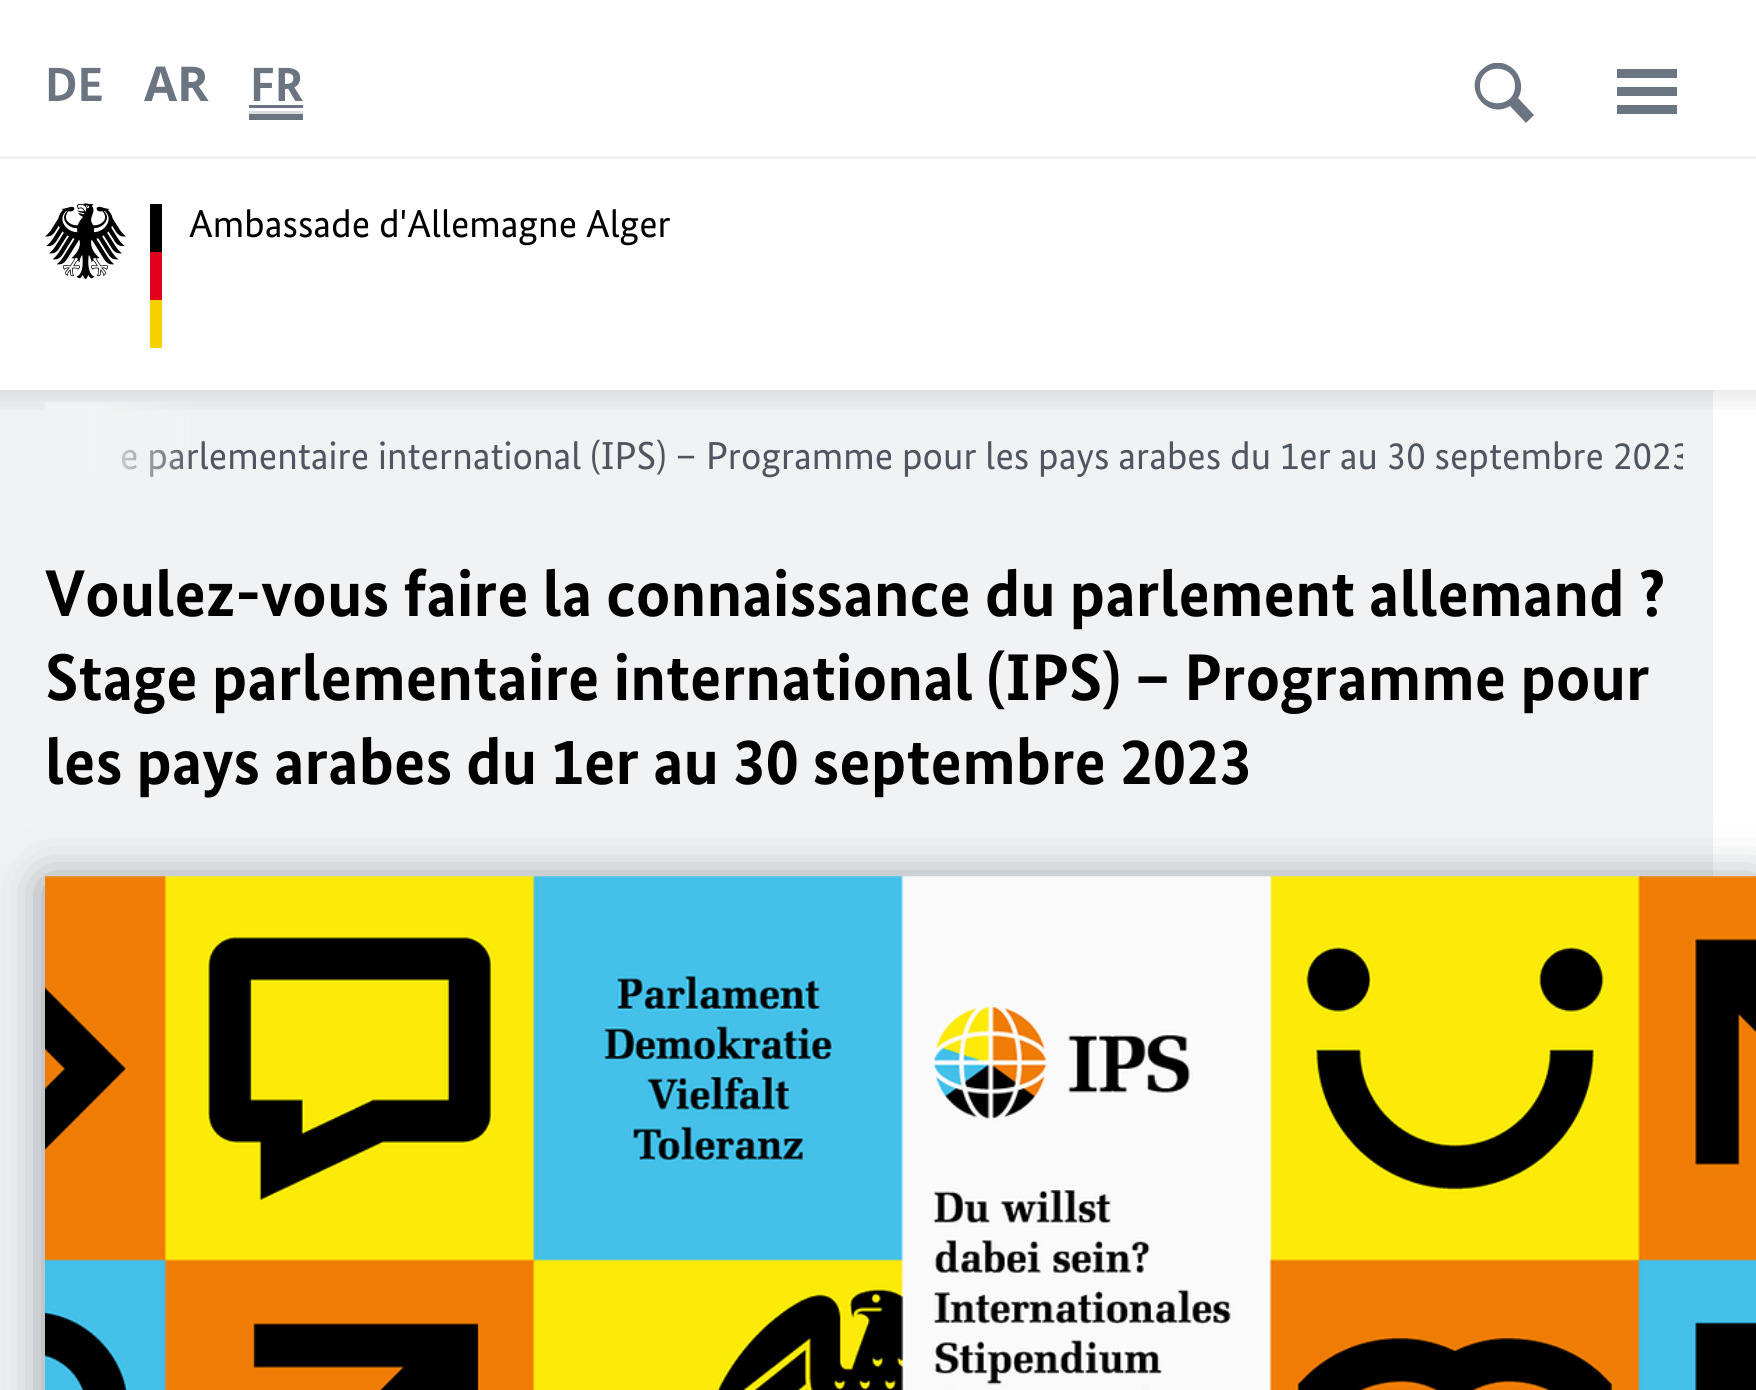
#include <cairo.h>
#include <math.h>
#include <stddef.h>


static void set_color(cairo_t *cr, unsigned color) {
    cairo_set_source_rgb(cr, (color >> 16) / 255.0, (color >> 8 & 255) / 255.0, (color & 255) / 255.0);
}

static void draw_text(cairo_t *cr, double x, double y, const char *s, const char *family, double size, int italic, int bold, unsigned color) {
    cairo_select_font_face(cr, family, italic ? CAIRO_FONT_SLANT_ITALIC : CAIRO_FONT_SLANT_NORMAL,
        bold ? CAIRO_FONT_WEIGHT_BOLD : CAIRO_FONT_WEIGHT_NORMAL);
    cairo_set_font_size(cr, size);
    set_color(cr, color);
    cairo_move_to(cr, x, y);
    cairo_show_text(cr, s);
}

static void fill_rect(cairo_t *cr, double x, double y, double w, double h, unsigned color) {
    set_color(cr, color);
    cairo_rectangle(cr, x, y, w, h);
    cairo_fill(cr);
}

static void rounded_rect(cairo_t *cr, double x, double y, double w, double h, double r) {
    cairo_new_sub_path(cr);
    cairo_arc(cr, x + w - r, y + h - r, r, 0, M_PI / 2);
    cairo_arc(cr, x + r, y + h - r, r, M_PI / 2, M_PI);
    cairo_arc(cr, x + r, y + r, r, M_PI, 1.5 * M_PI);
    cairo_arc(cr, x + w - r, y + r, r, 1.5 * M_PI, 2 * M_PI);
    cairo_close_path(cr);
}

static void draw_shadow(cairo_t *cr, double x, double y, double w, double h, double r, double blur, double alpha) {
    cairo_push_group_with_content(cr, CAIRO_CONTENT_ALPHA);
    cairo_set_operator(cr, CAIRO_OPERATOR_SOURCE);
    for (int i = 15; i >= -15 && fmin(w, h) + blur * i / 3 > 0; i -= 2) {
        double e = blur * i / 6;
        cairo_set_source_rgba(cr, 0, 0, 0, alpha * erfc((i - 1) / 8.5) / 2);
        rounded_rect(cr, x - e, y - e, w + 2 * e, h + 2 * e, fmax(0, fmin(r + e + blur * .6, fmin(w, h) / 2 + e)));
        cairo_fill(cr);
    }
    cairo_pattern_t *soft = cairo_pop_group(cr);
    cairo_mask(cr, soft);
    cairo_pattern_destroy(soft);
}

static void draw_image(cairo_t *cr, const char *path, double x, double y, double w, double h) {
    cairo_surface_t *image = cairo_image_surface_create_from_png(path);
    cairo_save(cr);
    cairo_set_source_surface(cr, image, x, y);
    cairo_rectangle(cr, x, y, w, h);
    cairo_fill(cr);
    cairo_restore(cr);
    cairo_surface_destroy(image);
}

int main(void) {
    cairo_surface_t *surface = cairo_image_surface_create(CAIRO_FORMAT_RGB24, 1756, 1390);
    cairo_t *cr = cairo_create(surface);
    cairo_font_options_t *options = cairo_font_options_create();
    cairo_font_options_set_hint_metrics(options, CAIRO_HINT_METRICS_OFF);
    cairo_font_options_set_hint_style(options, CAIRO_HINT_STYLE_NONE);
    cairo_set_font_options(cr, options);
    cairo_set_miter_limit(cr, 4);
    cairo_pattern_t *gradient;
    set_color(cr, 0xFFFFFF);
    cairo_paint(cr);
    fill_rect(cr, 0, 390, 45, 1000, 0xF1F2F3);
    fill_rect(cr, 45, 390, 1668, 490, 0xF1F2F3);
    cairo_save(cr);
    cairo_rectangle(cr, 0, 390, 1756, 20);
    cairo_clip(cr);
    set_color(cr, 0x000000);
    draw_shadow(cr, -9, -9, 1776, 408, 0, 13.5, 0.1);
    cairo_restore(cr);
    draw_text(cr, 45, 101, "DE", "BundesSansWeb", 48, 0, 1, 0x6B7581);
    draw_text(cr, 144, 101, "AR", "Noto Sans Arabic", 48, 0, 1, 0x6B7581);
    draw_text(cr, 250, 101, "FR", "BundesSansWeb", 48, 0, 1, 0x6B7581);
    fill_rect(cr, 249, 105, 54, 3, 0x6B7581);
    fill_rect(cr, 249, 111, 54, 3, 0xDADDE0);
    fill_rect(cr, 249, 114, 54, 6, 0x6B7581);
    cairo_save(cr);
    cairo_rectangle(cr, 1473, 63, 63, 63);
    cairo_clip(cr);
    cairo_new_path(cr);
    cairo_move_to(cr, 1480, 86);
    cairo_curve_to(cr, 1480, 63, 1515, 63, 1515, 86);
    cairo_curve_to(cr, 1515, 109, 1480, 109, 1480, 86);
    cairo_close_path(cr);
    cairo_move_to(cr, 1534, 115);
    cairo_line_to(cr, 1518, 98);
    cairo_curve_to(cr, 1522, 92, 1522, 84, 1519, 77);
    cairo_curve_to(cr, 1516, 70, 1510, 65, 1502, 63);
    cairo_curve_to(cr, 1496, 62, 1490, 63, 1485, 67);
    cairo_curve_to(cr, 1460, 84, 1485, 121, 1510, 106);
    cairo_line_to(cr, 1526, 123);
    cairo_close_path(cr);
    cairo_fill(cr);
    cairo_restore(cr);
    fill_rect(cr, 1617, 87, 60, 9, 0x6B7581);
    fill_rect(cr, 1617, 69, 60, 9, 0x6B7581);
    fill_rect(cr, 1617, 105, 60, 9, 0x6B7581);
    fill_rect(cr, 0, 156, 1756, 3, 0xF1F2F3);
    draw_image(cr, "assets/img1.png", 45, 203, 117, 145);
    draw_text(cr, 189, 237, "Ambassade d'Allemagne Alger", "BundesSansWeb", 39, 0, 0, 0x000000);
    cairo_save(cr);
    cairo_rectangle(cr, 45, 402, 1638, 126);
    cairo_clip(cr);
    draw_text(cr, 120, 469, "e parlementaire international (IPS) – Programme pour les pays arabes du 1er au 30 septembre 2023", "BundesSansWeb", 39, 0, 0, 0x4F5661);
    cairo_restore(cr);
    gradient = cairo_pattern_create_linear(45, 465, 195, 465);
    cairo_pattern_add_color_stop_rgba(gradient, 0, 0.945, 0.949, 0.953, 1);
    cairo_pattern_add_color_stop_rgba(gradient, 0.33, 0.945, 0.949, 0.953, 1);
    cairo_pattern_add_color_stop_rgba(gradient, 1, 0.945, 0.949, 0.953, 0);
    cairo_set_source(cr, gradient);
    cairo_pattern_destroy(gradient);
    cairo_rectangle(cr, 45, 402, 148, 75);
    cairo_fill(cr);
    draw_text(cr, 45, 616, "Voulez-vous faire la connaissance du parlement allemand ?", "BundesSansWeb", 66, 0, 1, 0x000000);
    draw_text(cr, 45, 700, "Stage parlementaire international (IPS) – Programme pour", "BundesSansWeb", 66, 0, 1, 0x000000);
    draw_text(cr, 45, 784, "les pays arabes du 1er au 30 septembre 2023", "BundesSansWeb", 66, 0, 1, 0x000000);
    set_color(cr, 0x4F5661);
    draw_shadow(cr, 45, 882, 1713, 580, 0, 24, 0.6);
    draw_image(cr, "assets/img2.png", 45, 876, 1711, 514);
    cairo_surface_write_to_png(surface, "output.png");
    cairo_font_options_destroy(options);
    cairo_destroy(cr);
    cairo_surface_destroy(surface);
    return 0;
}
